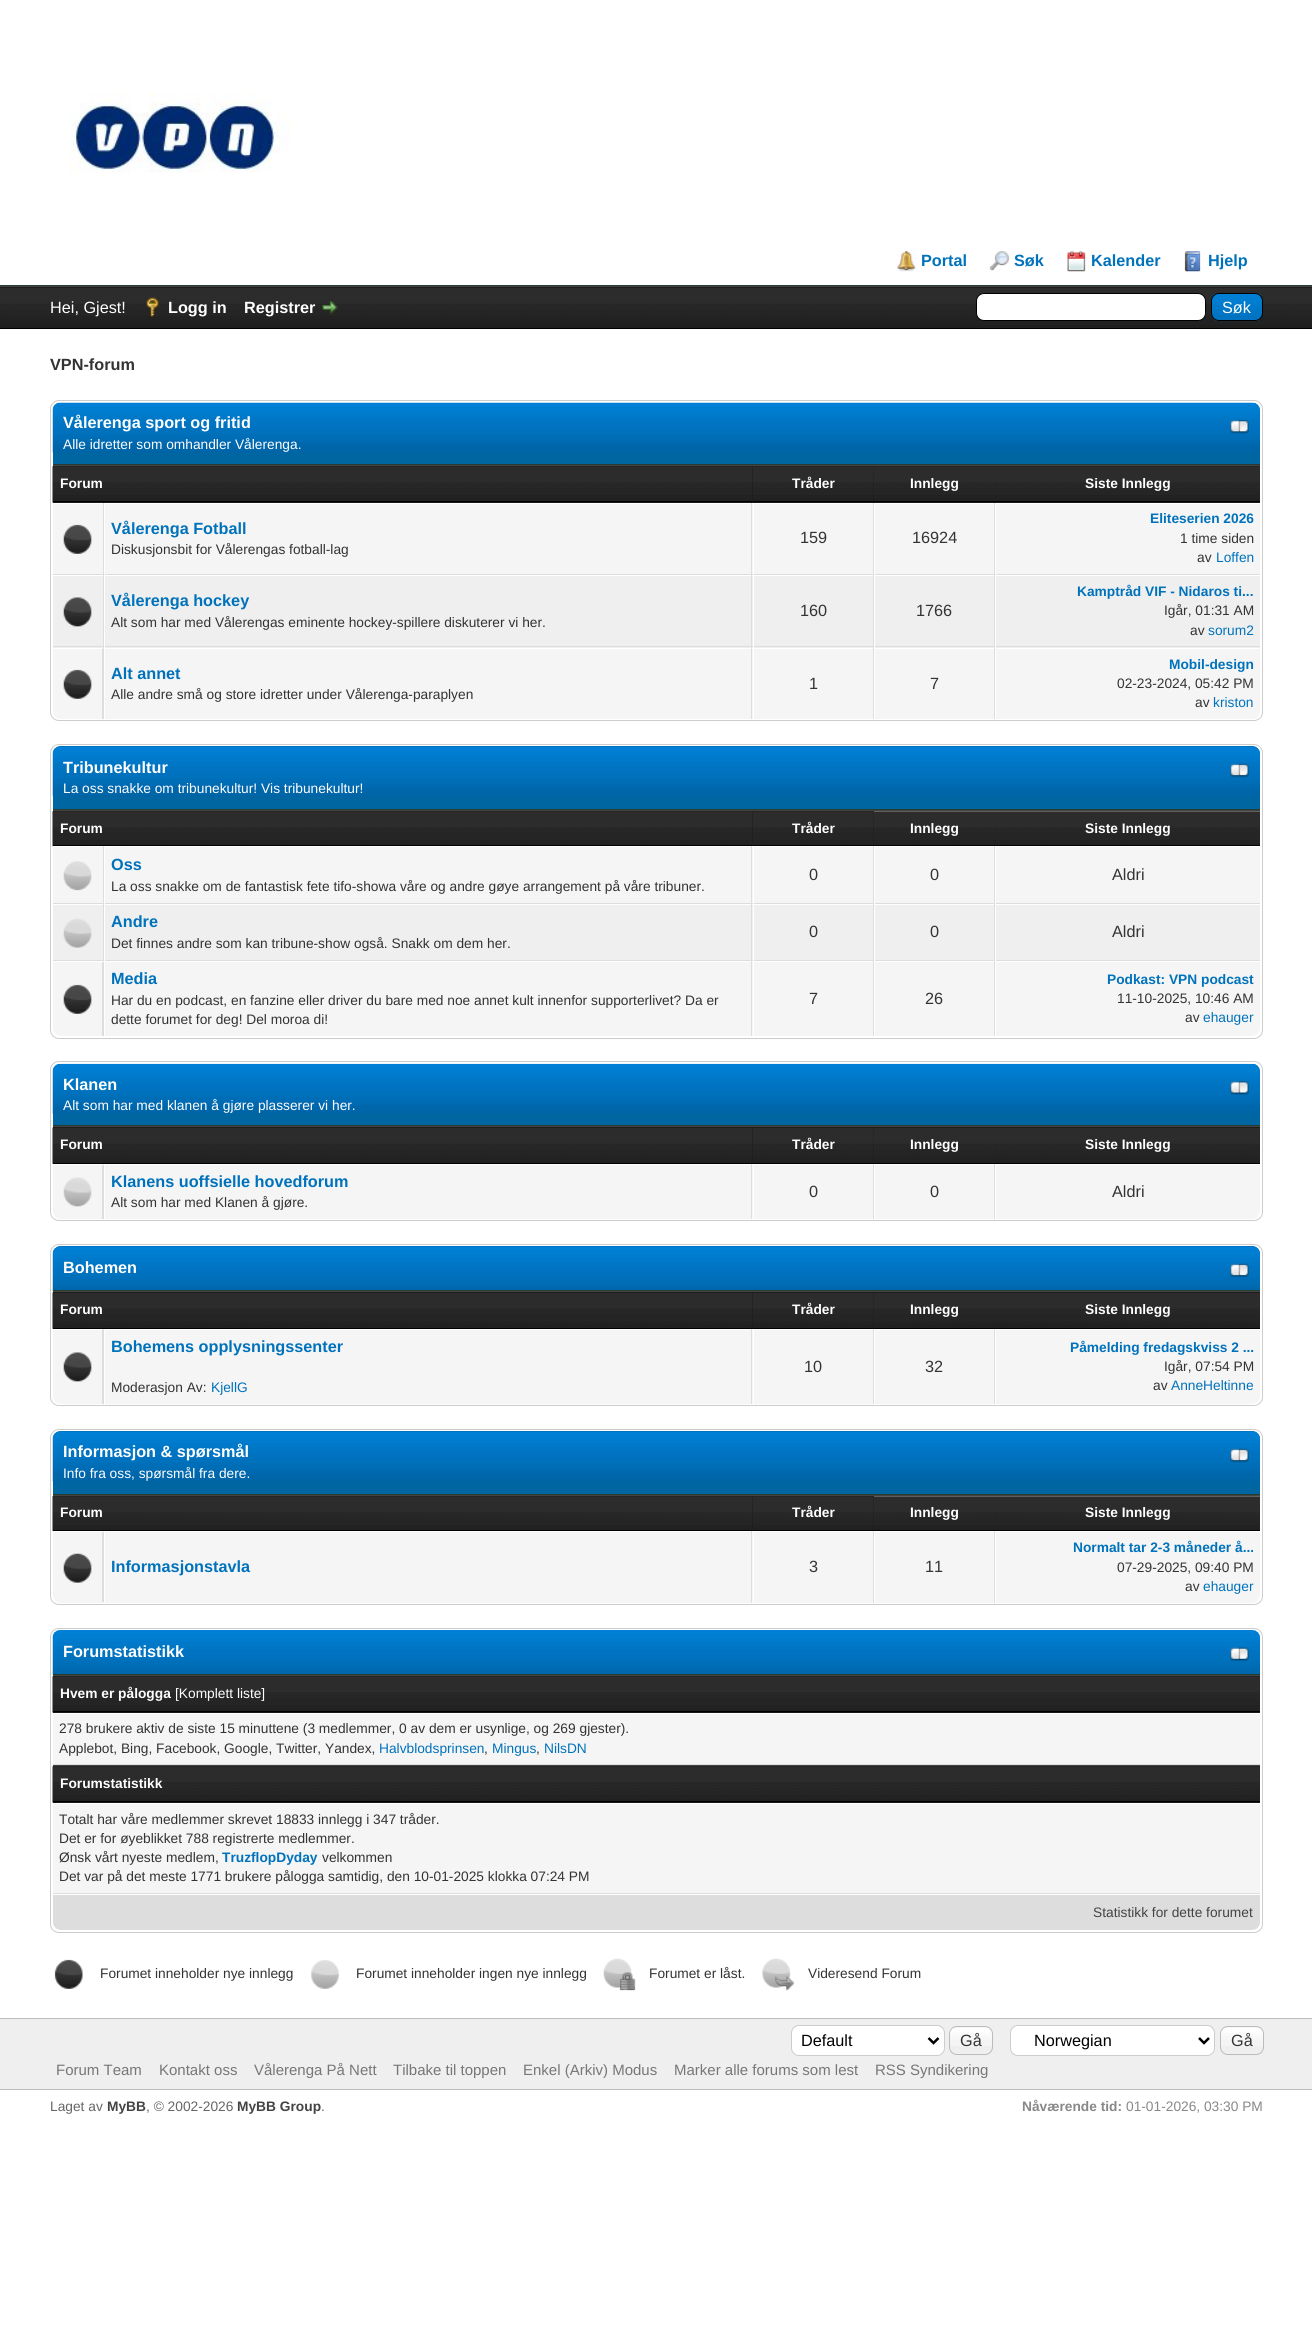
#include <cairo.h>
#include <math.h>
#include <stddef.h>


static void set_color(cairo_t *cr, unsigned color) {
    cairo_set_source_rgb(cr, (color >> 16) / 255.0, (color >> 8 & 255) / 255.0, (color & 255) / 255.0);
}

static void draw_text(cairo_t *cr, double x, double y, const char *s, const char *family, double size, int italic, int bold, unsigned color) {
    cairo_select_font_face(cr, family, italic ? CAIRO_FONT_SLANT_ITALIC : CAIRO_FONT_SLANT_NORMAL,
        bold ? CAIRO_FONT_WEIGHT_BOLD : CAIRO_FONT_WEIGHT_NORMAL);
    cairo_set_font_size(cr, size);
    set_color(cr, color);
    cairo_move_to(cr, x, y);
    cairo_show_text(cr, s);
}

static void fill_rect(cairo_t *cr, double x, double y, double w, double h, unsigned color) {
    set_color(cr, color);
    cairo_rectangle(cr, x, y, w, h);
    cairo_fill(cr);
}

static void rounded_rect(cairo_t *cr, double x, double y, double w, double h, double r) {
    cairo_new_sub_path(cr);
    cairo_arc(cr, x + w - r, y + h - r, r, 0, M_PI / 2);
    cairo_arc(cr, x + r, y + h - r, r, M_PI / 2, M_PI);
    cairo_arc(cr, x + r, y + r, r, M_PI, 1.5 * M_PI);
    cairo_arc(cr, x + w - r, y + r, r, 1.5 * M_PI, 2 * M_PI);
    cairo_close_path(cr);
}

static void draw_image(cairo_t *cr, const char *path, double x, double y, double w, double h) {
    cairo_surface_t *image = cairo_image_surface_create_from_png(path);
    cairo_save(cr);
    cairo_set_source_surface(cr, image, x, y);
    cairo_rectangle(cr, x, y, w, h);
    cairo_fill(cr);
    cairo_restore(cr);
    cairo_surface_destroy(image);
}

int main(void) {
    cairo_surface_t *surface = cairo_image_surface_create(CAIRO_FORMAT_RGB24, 1312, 2339);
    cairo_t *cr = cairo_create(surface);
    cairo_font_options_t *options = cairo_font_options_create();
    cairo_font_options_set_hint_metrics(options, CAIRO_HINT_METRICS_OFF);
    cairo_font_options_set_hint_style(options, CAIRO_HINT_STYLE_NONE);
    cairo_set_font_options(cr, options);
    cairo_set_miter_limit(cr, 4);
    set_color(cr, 0xFFFFFF);
    cairo_paint(cr);
    fill_rect(cr, 0, 285, 1312, 1, 0x263C30);
    draw_image(cr, "assets/img1.png", 69, 92, 222, 81);
    draw_image(cr, "assets/img2.png", 897, 251, 19, 21);
    draw_text(cr, 921, 266, "Portal", "Liberation Sans", 16.25, 0, 1, 0x0072BC);
    draw_image(cr, "assets/img3.png", 989, 251, 20, 20);
    draw_text(cr, 1014, 266, "Søk", "Liberation Sans", 16.25, 0, 1, 0x0072BC);
    draw_image(cr, "assets/img4.png", 1067, 251, 19, 21);
    draw_text(cr, 1091, 266, "Kalender", "Liberation Sans", 16.25, 0, 1, 0x0072BC);
    draw_image(cr, "assets/img5.png", 1184, 251, 17, 21);
    draw_text(cr, 1208, 266, "Hjelp", "Liberation Sans", 16.25, 0, 1, 0x0072BC);
    fill_rect(cr, 0, 287, 1312, 1, 0x0F0F0F);
    draw_image(cr, "assets/img6.png", 0, 287, 1312, 41);
    fill_rect(cr, 0, 286, 1312, 1, 0x444444);
    fill_rect(cr, 0, 328, 1312, 1, 0x000000);
    draw_text(cr, 50, 313, "Hei, Gjest!", "Liberation Sans", 16.25, 0, 0, 0xFFFFFF);
    draw_image(cr, "assets/img7.png", 146, 297, 13, 20);
    draw_text(cr, 168, 313, "Logg in", "Liberation Sans", 16.25, 0, 1, 0xFFFFFF);
    draw_text(cr, 244, 313, "Registrer", "Liberation Sans", 16.25, 0, 1, 0xFFFFFF);
    draw_image(cr, "assets/img8.png", 322, 301, 16, 13);
    rounded_rect(cr, 976.5, 293.5, 229, 27, 7.5);
    cairo_fill_preserve(cr);
    set_color(cr, 0x000000);
    cairo_set_line_width(cr, 1);
    cairo_stroke(cr);
    draw_image(cr, "assets/img9.png", 1211, 293, 52, 29);
    rounded_rect(cr, 1211.5, 293.5, 51, 27, 7.5);
    cairo_stroke(cr);
    draw_text(cr, 1222, 313, "Søk", "Liberation Sans", 16.25, 0, 0, 0xFFFFFF);
    draw_text(cr, 50, 370, "VPN-forum", "Liberation Sans", 16.25, 0, 1, 0x333333);
    rounded_rect(cr, 50.5, 400.5, 1212, 320, 8.5);
    set_color(cr, 0xCCCCCC);
    cairo_stroke(cr);
    set_color(cr, 0x0066A2);
    cairo_new_path(cr);
    cairo_move_to(cr, 61, 403);
    cairo_line_to(cr, 1252, 403);
    cairo_curve_to(cr, 1256.5, 403, 1260, 406.5, 1260, 411);
    cairo_line_to(cr, 1260, 465);
    cairo_line_to(cr, 53, 465);
    cairo_line_to(cr, 53, 411);
    cairo_curve_to(cr, 53, 406.5, 56.5, 403, 61, 403);
    cairo_close_path(cr);
    cairo_fill(cr);
    draw_image(cr, "assets/img10.png", 52, 402, 1208, 51);
    fill_rect(cr, 53, 464, 1207, 1, 0x263C30);
    draw_text(cr, 63, 428, "Vålerenga sport og fritid", "Liberation Sans", 16.25, 0, 1, 0xFFFFFF);
    draw_text(cr, 63, 449, "Alle idretter som omhandler Vålerenga.", "Liberation Sans", 13.75, 0, 0, 0xFFFFFF);
    draw_image(cr, "assets/img11.png", 1230, 420, 19, 14);
    fill_rect(cr, 53, 466, 1207, 37, 0x0F0F0F);
    draw_image(cr, "assets/img12.png", 52, 466, 701, 37);
    fill_rect(cr, 53, 465, 1207, 1, 0x444444);
    fill_rect(cr, 53, 501, 700, 1, 0x000000);
    draw_text(cr, 60, 488, "Forum", "Liberation Sans", 13.75, 0, 1, 0xFFFFFF);
    draw_image(cr, "assets/img13.png", 752, 466, 122, 37);
    fill_rect(cr, 753, 501, 121, 1, 0x000000);
    draw_text(cr, 792, 488, "Tråder", "Liberation Sans", 13.75, 0, 1, 0xFFFFFF);
    draw_image(cr, "assets/img14.png", 873, 466, 122, 37);
    fill_rect(cr, 874, 501, 121, 1, 0x000000);
    draw_text(cr, 910, 488, "Innlegg", "Liberation Sans", 13.75, 0, 1, 0xFFFFFF);
    draw_image(cr, "assets/img15.png", 995, 466, 265, 37);
    fill_rect(cr, 995, 501, 265, 1, 0x000000);
    draw_text(cr, 1085, 488, "Siste Innlegg", "Liberation Sans", 13.75, 0, 1, 0xFFFFFF);
    fill_rect(cr, 53, 504, 50, 70, 0xF5F5F5);
    fill_rect(cr, 103, 503, 1, 145, 0xDDDDDD);
    fill_rect(cr, 53, 574, 51, 1, 0xDDDDDD);
    draw_image(cr, "assets/img16.png", 63, 524, 29, 30);
    fill_rect(cr, 105, 504, 648, 70, 0xF5F5F5);
    fill_rect(cr, 751, 503, 1, 72, 0xDDDDDD);
    fill_rect(cr, 104, 574, 649, 1, 0xDDDDDD);
    fill_rect(cr, 104, 574, 1, 1, 0xFFFFFF);
    draw_text(cr, 111, 534, "Vålerenga Fotball", "Liberation Sans", 16.25, 0, 1, 0x0072BC);
    draw_text(cr, 111, 554, "Diskusjonsbit for Vålerengas fotball-lag", "Liberation Sans", 13.75, 0, 0, 0x333333);
    fill_rect(cr, 754, 504, 119, 70, 0xF5F5F5);
    fill_rect(cr, 873, 503, 1, 216, 0xDDDDDD);
    fill_rect(cr, 753, 574, 121, 1, 0xDDDDDD);
    fill_rect(cr, 753, 574, 1, 1, 0xFFFFFF);
    draw_text(cr, 800, 543, "159", "Liberation Sans", 16.25, 0, 0, 0x333333);
    fill_rect(cr, 875, 504, 119, 70, 0xF5F5F5);
    fill_rect(cr, 994, 503, 1, 216, 0xDDDDDD);
    fill_rect(cr, 874, 574, 386, 1, 0xDDDDDD);
    fill_rect(cr, 874, 574, 1, 1, 0xFFFFFF);
    draw_text(cr, 912, 543, "16924", "Liberation Sans", 16.25, 0, 0, 0x333333);
    fill_rect(cr, 996, 504, 264, 70, 0xF5F5F5);
    fill_rect(cr, 995, 574, 1, 1, 0xFFFFFF);
    draw_text(cr, 1150, 523, "Eliteserien 2026", "Liberation Sans", 13.75, 0, 1, 0x0072BC);
    draw_text(cr, 1180, 543, "1 time siden", "Liberation Sans", 13.75, 0, 0, 0x333333);
    draw_text(cr, 1197, 562, "av", "Liberation Sans", 13.75, 0, 0, 0x333333);
    draw_text(cr, 1216, 562, "Loffen", "Liberation Sans", 13.75, 0, 0, 0x0072BC);
    fill_rect(cr, 53, 576, 50, 72, 0xEFEFEF);
    fill_rect(cr, 53, 646, 51, 1, 0xDDDDDD);
    draw_image(cr, "assets/img17.png", 63, 597, 29, 30);
    fill_rect(cr, 105, 576, 648, 72, 0xEFEFEF);
    fill_rect(cr, 751, 575, 1, 73, 0xDDDDDD);
    fill_rect(cr, 104, 646, 649, 1, 0xDDDDDD);
    fill_rect(cr, 104, 646, 1, 2, 0xFFFFFF);
    draw_text(cr, 111, 606, "Vålerenga hockey", "Liberation Sans", 16.25, 0, 1, 0x0072BC);
    draw_text(cr, 111, 627, "Alt som har med Vålerengas eminente hockey-spillere diskuterer vi her.", "Liberation Sans", 13.75, 0, 0, 0x333333);
    fill_rect(cr, 754, 576, 119, 72, 0xEFEFEF);
    fill_rect(cr, 753, 646, 121, 1, 0xDDDDDD);
    fill_rect(cr, 753, 646, 1, 2, 0xFFFFFF);
    draw_text(cr, 800, 616, "160", "Liberation Sans", 16.25, 0, 0, 0x333333);
    fill_rect(cr, 875, 576, 119, 72, 0xEFEFEF);
    fill_rect(cr, 874, 646, 121, 1, 0xDDDDDD);
    fill_rect(cr, 874, 646, 1, 2, 0xFFFFFF);
    draw_text(cr, 916, 616, "1766", "Liberation Sans", 16.25, 0, 0, 0x333333);
    fill_rect(cr, 996, 576, 264, 72, 0xEFEFEF);
    fill_rect(cr, 995, 646, 265, 1, 0xDDDDDD);
    fill_rect(cr, 995, 646, 1, 2, 0xFFFFFF);
    draw_text(cr, 1077, 596, "Kamptråd VIF - Nidaros ti...", "Liberation Sans", 13.75, 0, 1, 0x0072BC);
    draw_text(cr, 1164, 615, "Igår, 01:31 AM", "Liberation Sans", 13.75, 0, 0, 0x333333);
    draw_text(cr, 1190, 635, "av", "Liberation Sans", 13.75, 0, 0, 0x333333);
    draw_text(cr, 1208, 635, "sorum2", "Liberation Sans", 13.75, 0, 0, 0x0072BC);
    set_color(cr, 0xF5F5F5);
    cairo_new_path(cr);
    cairo_move_to(cr, 53, 648);
    cairo_line_to(cr, 104, 648);
    cairo_line_to(cr, 104, 719);
    cairo_line_to(cr, 61, 719);
    cairo_curve_to(cr, 56.5, 719, 53, 715.5, 53, 711);
    cairo_close_path(cr);
    cairo_fill(cr);
    set_color(cr, 0xFFFFFF);
    cairo_new_path(cr);
    cairo_move_to(cr, 52, 649);
    cairo_line_to(cr, 52, 648);
    cairo_line_to(cr, 103, 648);
    cairo_line_to(cr, 102, 649);
    cairo_close_path(cr);
    cairo_fill(cr);
    set_color(cr, 0xDDDDDD);
    cairo_new_path(cr);
    cairo_move_to(cr, 102, 649);
    cairo_line_to(cr, 104, 648);
    cairo_line_to(cr, 104, 719);
    cairo_line_to(cr, 102, 719);
    cairo_close_path(cr);
    cairo_fill(cr);
    draw_image(cr, "assets/img16.png", 63, 669, 29, 30);
    fill_rect(cr, 105, 649, 648, 70, 0xF5F5F5);
    fill_rect(cr, 751, 648, 1, 71, 0xDDDDDD);
    draw_text(cr, 111, 679, "Alt annet", "Liberation Sans", 16.25, 0, 1, 0x0072BC);
    draw_text(cr, 111, 699, "Alle andre små og store idretter under Vålerenga-paraplyen", "Liberation Sans", 13.75, 0, 0, 0x333333);
    fill_rect(cr, 754, 649, 119, 70, 0xF5F5F5);
    draw_text(cr, 809, 689, "1", "Liberation Sans", 16.25, 0, 0, 0x333333);
    fill_rect(cr, 875, 649, 119, 70, 0xF5F5F5);
    draw_text(cr, 930, 689, "7", "Liberation Sans", 16.25, 0, 0, 0x333333);
    set_color(cr, 0xF5F5F5);
    cairo_new_path(cr);
    cairo_move_to(cr, 995, 648);
    cairo_line_to(cr, 1260, 648);
    cairo_line_to(cr, 1260, 711);
    cairo_curve_to(cr, 1260, 715.5, 1256.5, 719, 1252, 719);
    cairo_line_to(cr, 995, 719);
    cairo_close_path(cr);
    cairo_fill(cr);
    fill_rect(cr, 995, 648, 265, 1, 0xFFFFFF);
    fill_rect(cr, 995, 648, 1, 71, 0xFFFFFF);
    draw_text(cr, 1169, 669, "Mobil-design", "Liberation Sans", 13.75, 0, 1, 0x0072BC);
    draw_text(cr, 1117, 688, "02-23-2024, 05:42 PM", "Liberation Sans", 13.75, 0, 0, 0x333333);
    draw_text(cr, 1195, 707, "av", "Liberation Sans", 13.75, 0, 0, 0x333333);
    draw_text(cr, 1213, 707, "kriston", "Liberation Sans", 13.75, 0, 0, 0x0072BC);
    rounded_rect(cr, 50.5, 744.5, 1212, 294, 8.5);
    set_color(cr, 0xCCCCCC);
    cairo_stroke(cr);
    set_color(cr, 0x0066A2);
    cairo_new_path(cr);
    cairo_move_to(cr, 61, 746);
    cairo_line_to(cr, 1252, 746);
    cairo_curve_to(cr, 1256.5, 746, 1260, 749.5, 1260, 754);
    cairo_line_to(cr, 1260, 810);
    cairo_line_to(cr, 53, 810);
    cairo_line_to(cr, 53, 754);
    cairo_curve_to(cr, 53, 749.5, 56.5, 746, 61, 746);
    cairo_close_path(cr);
    cairo_fill(cr);
    draw_image(cr, "assets/img18.png", 52, 746, 1208, 51);
    fill_rect(cr, 53, 809, 1207, 1, 0x263C30);
    draw_text(cr, 63, 773, "Tribunekultur", "Liberation Sans", 16.25, 0, 1, 0xFFFFFF);
    draw_text(cr, 63, 793, "La oss snakke om tribunekultur! Vis tribunekultur!", "Liberation Sans", 13.75, 0, 0, 0xFFFFFF);
    draw_image(cr, "assets/img19.png", 1230, 763, 19, 15);
    fill_rect(cr, 53, 811, 821, 34, 0x0F0F0F);
    draw_image(cr, "assets/img20.png", 52, 811, 701, 36);
    fill_rect(cr, 53, 810, 1207, 1, 0x444444);
    fill_rect(cr, 53, 845, 700, 1, 0x000000);
    draw_text(cr, 60, 833, "Forum", "Liberation Sans", 13.75, 0, 1, 0xFFFFFF);
    draw_image(cr, "assets/img21.png", 752, 811, 122, 35);
    fill_rect(cr, 753, 845, 121, 1, 0x000000);
    draw_text(cr, 792, 833, "Tråder", "Liberation Sans", 13.75, 0, 1, 0xFFFFFF);
    draw_image(cr, "assets/img22.png", 873, 811, 122, 35);
    fill_rect(cr, 874, 845, 386, 1, 0x000000);
    draw_text(cr, 910, 833, "Innlegg", "Liberation Sans", 13.75, 0, 1, 0xFFFFFF);
    draw_image(cr, "assets/img23.png", 995, 811, 265, 34);
    draw_text(cr, 1085, 833, "Siste Innlegg", "Liberation Sans", 13.75, 0, 1, 0xFFFFFF);
    fill_rect(cr, 53, 847, 50, 56, 0xF5F5F5);
    fill_rect(cr, 53, 846, 700, 1, 0xFFFFFF);
    fill_rect(cr, 103, 846, 1, 115, 0xDDDDDD);
    fill_rect(cr, 53, 903, 51, 1, 0xDDDDDD);
    draw_image(cr, "assets/img24.png", 63, 861, 29, 30);
    fill_rect(cr, 105, 847, 648, 56, 0xF5F5F5);
    fill_rect(cr, 751, 846, 1, 58, 0xDDDDDD);
    fill_rect(cr, 104, 903, 649, 1, 0xDDDDDD);
    fill_rect(cr, 104, 903, 1, 1, 0xFFFFFF);
    draw_text(cr, 111, 870, "Oss", "Liberation Sans", 16.25, 0, 1, 0x0072BC);
    draw_text(cr, 111, 891, "La oss snakke om de fantastisk fete tifo-showa våre og andre gøye arrangement på våre tribuner.", "Liberation Sans", 13.75, 0, 0, 0x333333);
    fill_rect(cr, 754, 847, 119, 56, 0xF5F5F5);
    fill_rect(cr, 873, 846, 1, 190, 0xDDDDDD);
    fill_rect(cr, 753, 903, 121, 1, 0xDDDDDD);
    fill_rect(cr, 753, 903, 1, 1, 0xFFFFFF);
    draw_text(cr, 809, 880, "0", "Liberation Sans", 16.25, 0, 0, 0x333333);
    fill_rect(cr, 875, 847, 119, 56, 0xF5F5F5);
    fill_rect(cr, 994, 846, 1, 190, 0xDDDDDD);
    fill_rect(cr, 874, 903, 386, 1, 0xDDDDDD);
    fill_rect(cr, 874, 903, 1, 1, 0xFFFFFF);
    draw_text(cr, 930, 880, "0", "Liberation Sans", 16.25, 0, 0, 0x333333);
    fill_rect(cr, 996, 847, 264, 56, 0xF5F5F5);
    fill_rect(cr, 995, 903, 1, 1, 0xFFFFFF);
    draw_text(cr, 1112, 880, "Aldri", "Liberation Sans", 16.25, 0, 0, 0x333333);
    fill_rect(cr, 53, 905, 50, 55, 0xEFEFEF);
    fill_rect(cr, 53, 960, 51, 1, 0xDDDDDD);
    draw_image(cr, "assets/img25.png", 63, 918, 29, 30);
    fill_rect(cr, 105, 905, 648, 55, 0xEFEFEF);
    fill_rect(cr, 751, 904, 1, 57, 0xDDDDDD);
    fill_rect(cr, 104, 960, 1156, 1, 0xDDDDDD);
    fill_rect(cr, 104, 960, 1, 1, 0xFFFFFF);
    draw_text(cr, 111, 927, "Andre", "Liberation Sans", 16.25, 0, 1, 0x0072BC);
    draw_text(cr, 111, 948, "Det finnes andre som kan tribune-show også. Snakk om dem her.", "Liberation Sans", 13.75, 0, 0, 0x333333);
    fill_rect(cr, 754, 905, 119, 55, 0xEFEFEF);
    fill_rect(cr, 753, 960, 1, 1, 0xFFFFFF);
    draw_text(cr, 809, 937, "0", "Liberation Sans", 16.25, 0, 0, 0x333333);
    fill_rect(cr, 875, 905, 119, 55, 0xEFEFEF);
    fill_rect(cr, 874, 960, 1, 1, 0xFFFFFF);
    draw_text(cr, 930, 937, "0", "Liberation Sans", 16.25, 0, 0, 0x333333);
    fill_rect(cr, 996, 905, 264, 55, 0xEFEFEF);
    fill_rect(cr, 995, 960, 1, 1, 0xFFFFFF);
    draw_text(cr, 1112, 937, "Aldri", "Liberation Sans", 16.25, 0, 0, 0x333333);
    set_color(cr, 0xF5F5F5);
    cairo_new_path(cr);
    cairo_move_to(cr, 53, 961);
    cairo_line_to(cr, 104, 961);
    cairo_line_to(cr, 104, 1036);
    cairo_line_to(cr, 61, 1036);
    cairo_curve_to(cr, 56.5, 1036, 53, 1032.5, 53, 1028);
    cairo_close_path(cr);
    cairo_fill(cr);
    set_color(cr, 0xFFFFFF);
    cairo_new_path(cr);
    cairo_move_to(cr, 52, 961);
    cairo_line_to(cr, 104, 961);
    cairo_line_to(cr, 102, 963);
    cairo_line_to(cr, 102, 962);
    cairo_line_to(cr, 52, 962);
    cairo_close_path(cr);
    cairo_fill(cr);
    set_color(cr, 0xDDDDDD);
    cairo_new_path(cr);
    cairo_move_to(cr, 104, 961);
    cairo_line_to(cr, 102, 963);
    cairo_line_to(cr, 102, 1036);
    cairo_line_to(cr, 104, 1036);
    cairo_close_path(cr);
    cairo_fill(cr);
    draw_image(cr, "assets/img16.png", 63, 984, 29, 30);
    fill_rect(cr, 105, 962, 648, 74, 0xF5F5F5);
    fill_rect(cr, 751, 961, 1, 75, 0xDDDDDD);
    draw_text(cr, 111, 984, "Media", "Liberation Sans", 16.25, 0, 1, 0x0072BC);
    draw_text(cr, 111, 1005, "Har du en podcast, en fanzine eller driver du bare med noe annet kult innenfor supporterlivet? Da er", "Liberation Sans", 13.75, 0, 0, 0x333333);
    draw_text(cr, 111, 1024, "dette forumet for deg! Del moroa di!", "Liberation Sans", 13.75, 0, 0, 0x333333);
    fill_rect(cr, 754, 962, 119, 74, 0xF5F5F5);
    draw_text(cr, 809, 1004, "7", "Liberation Sans", 16.25, 0, 0, 0x333333);
    fill_rect(cr, 875, 962, 119, 74, 0xF5F5F5);
    draw_text(cr, 925, 1004, "26", "Liberation Sans", 16.25, 0, 0, 0x333333);
    set_color(cr, 0xF5F5F5);
    cairo_new_path(cr);
    cairo_move_to(cr, 995, 961);
    cairo_line_to(cr, 1260, 961);
    cairo_line_to(cr, 1260, 1028);
    cairo_curve_to(cr, 1260, 1032.5, 1256.5, 1036, 1252, 1036);
    cairo_line_to(cr, 995, 1036);
    cairo_close_path(cr);
    cairo_fill(cr);
    fill_rect(cr, 995, 961, 265, 1, 0xFFFFFF);
    fill_rect(cr, 995, 961, 1, 75, 0xFFFFFF);
    draw_text(cr, 1107, 984, "Podkast: VPN podcast", "Liberation Sans", 13.75, 0, 1, 0x0072BC);
    draw_text(cr, 1117, 1003, "11-10-2025, 10:46 AM", "Liberation Sans", 13.75, 0, 0, 0x333333);
    draw_text(cr, 1185, 1022, "av", "Liberation Sans", 13.75, 0, 0, 0x333333);
    draw_text(cr, 1203, 1022, "ehauger", "Liberation Sans", 13.75, 0, 0, 0x0072BC);
    rounded_rect(cr, 50.5, 1061.5, 1212, 159, 8.5);
    set_color(cr, 0xCCCCCC);
    cairo_stroke(cr);
    set_color(cr, 0x0066A2);
    cairo_new_path(cr);
    cairo_move_to(cr, 61, 1064);
    cairo_line_to(cr, 1252, 1064);
    cairo_curve_to(cr, 1256.5, 1064, 1260, 1067.5, 1260, 1072);
    cairo_line_to(cr, 1260, 1126);
    cairo_line_to(cr, 53, 1126);
    cairo_line_to(cr, 53, 1072);
    cairo_curve_to(cr, 53, 1067.5, 56.5, 1064, 61, 1064);
    cairo_close_path(cr);
    cairo_fill(cr);
    draw_image(cr, "assets/img26.png", 52, 1063, 1208, 51);
    fill_rect(cr, 53, 1125, 1207, 1, 0x263C30);
    draw_text(cr, 63, 1090, "Klanen", "Liberation Sans", 16.25, 0, 1, 0xFFFFFF);
    draw_text(cr, 63, 1110, "Alt som har med klanen å gjøre plasserer vi her.", "Liberation Sans", 13.75, 0, 0, 0xFFFFFF);
    draw_image(cr, "assets/img27.png", 1230, 1081, 19, 14);
    fill_rect(cr, 53, 1127, 821, 36, 0x0F0F0F);
    draw_image(cr, "assets/img28.png", 52, 1127, 701, 37);
    fill_rect(cr, 53, 1126, 1207, 1, 0x444444);
    fill_rect(cr, 53, 1163, 700, 1, 0x000000);
    draw_text(cr, 60, 1149, "Forum", "Liberation Sans", 13.75, 0, 1, 0xFFFFFF);
    draw_image(cr, "assets/img29.png", 752, 1127, 122, 37);
    fill_rect(cr, 753, 1163, 121, 1, 0x000000);
    draw_text(cr, 792, 1149, "Tråder", "Liberation Sans", 13.75, 0, 1, 0xFFFFFF);
    fill_rect(cr, 874, 1127, 386, 1, 0x0F0F0F);
    draw_image(cr, "assets/img30.png", 873, 1127, 122, 37);
    fill_rect(cr, 874, 1163, 386, 1, 0x000000);
    draw_text(cr, 910, 1149, "Innlegg", "Liberation Sans", 13.75, 0, 1, 0xFFFFFF);
    draw_image(cr, "assets/img31.png", 995, 1127, 265, 36);
    draw_text(cr, 1085, 1149, "Siste Innlegg", "Liberation Sans", 13.75, 0, 1, 0xFFFFFF);
    set_color(cr, 0xF5F5F5);
    cairo_new_path(cr);
    cairo_move_to(cr, 53, 1164);
    cairo_line_to(cr, 104, 1164);
    cairo_line_to(cr, 104, 1219);
    cairo_line_to(cr, 61, 1219);
    cairo_curve_to(cr, 56.5, 1219, 53, 1215.5, 53, 1211);
    cairo_close_path(cr);
    cairo_fill(cr);
    set_color(cr, 0xFFFFFF);
    cairo_new_path(cr);
    cairo_move_to(cr, 52, 1165);
    cairo_line_to(cr, 52, 1164);
    cairo_line_to(cr, 104, 1164);
    cairo_line_to(cr, 102, 1166);
    cairo_line_to(cr, 102, 1165);
    cairo_close_path(cr);
    cairo_fill(cr);
    set_color(cr, 0xDDDDDD);
    cairo_new_path(cr);
    cairo_move_to(cr, 102, 1166);
    cairo_line_to(cr, 104, 1164);
    cairo_line_to(cr, 104, 1219);
    cairo_line_to(cr, 102, 1219);
    cairo_close_path(cr);
    cairo_fill(cr);
    draw_image(cr, "assets/img32.png", 63, 1177, 29, 30);
    fill_rect(cr, 105, 1165, 648, 54, 0xF5F5F5);
    fill_rect(cr, 751, 1164, 1, 55, 0xDDDDDD);
    draw_text(cr, 111, 1187, "Klanens uoffsielle hovedforum", "Liberation Sans", 16.25, 0, 1, 0x0072BC);
    draw_text(cr, 111, 1207, "Alt som har med Klanen å gjøre.", "Liberation Sans", 13.75, 0, 0, 0x333333);
    fill_rect(cr, 754, 1165, 119, 54, 0xF5F5F5);
    fill_rect(cr, 873, 1164, 1, 55, 0xDDDDDD);
    draw_text(cr, 809, 1197, "0", "Liberation Sans", 16.25, 0, 0, 0x333333);
    fill_rect(cr, 875, 1165, 119, 54, 0xF5F5F5);
    fill_rect(cr, 994, 1164, 1, 55, 0xDDDDDD);
    draw_text(cr, 930, 1197, "0", "Liberation Sans", 16.25, 0, 0, 0x333333);
    set_color(cr, 0xF5F5F5);
    cairo_new_path(cr);
    cairo_move_to(cr, 995, 1164);
    cairo_line_to(cr, 1260, 1164);
    cairo_line_to(cr, 1260, 1211);
    cairo_curve_to(cr, 1260, 1215.5, 1256.5, 1219, 1252, 1219);
    cairo_line_to(cr, 995, 1219);
    cairo_close_path(cr);
    cairo_fill(cr);
    fill_rect(cr, 995, 1164, 265, 1, 0xFFFFFF);
    fill_rect(cr, 995, 1164, 1, 55, 0xFFFFFF);
    draw_text(cr, 1112, 1197, "Aldri", "Liberation Sans", 16.25, 0, 0, 0x333333);
    rounded_rect(cr, 50.5, 1244.5, 1212, 161, 8.5);
    set_color(cr, 0xCCCCCC);
    cairo_stroke(cr);
    set_color(cr, 0x0066A2);
    cairo_new_path(cr);
    cairo_move_to(cr, 61, 1246);
    cairo_line_to(cr, 1252, 1246);
    cairo_curve_to(cr, 1256.5, 1246, 1260, 1249.5, 1260, 1254);
    cairo_line_to(cr, 1260, 1291);
    cairo_line_to(cr, 53, 1291);
    cairo_line_to(cr, 53, 1254);
    cairo_curve_to(cr, 53, 1249.5, 56.5, 1246, 61, 1246);
    cairo_close_path(cr);
    cairo_fill(cr);
    draw_image(cr, "assets/img33.png", 52, 1246, 1208, 45);
    fill_rect(cr, 53, 1290, 1207, 1, 0x263C30);
    draw_text(cr, 63, 1273, "Bohemen", "Liberation Sans", 16.25, 0, 1, 0xFFFFFF);
    draw_image(cr, "assets/img19.png", 1230, 1263, 19, 15);
    fill_rect(cr, 53, 1292, 821, 36, 0x0F0F0F);
    draw_image(cr, "assets/img28.png", 52, 1292, 701, 37);
    fill_rect(cr, 53, 1291, 1207, 1, 0x444444);
    fill_rect(cr, 53, 1328, 700, 1, 0x000000);
    draw_text(cr, 60, 1314, "Forum", "Liberation Sans", 13.75, 0, 1, 0xFFFFFF);
    draw_image(cr, "assets/img29.png", 752, 1292, 122, 37);
    fill_rect(cr, 753, 1328, 121, 1, 0x000000);
    draw_text(cr, 792, 1314, "Tråder", "Liberation Sans", 13.75, 0, 1, 0xFFFFFF);
    fill_rect(cr, 874, 1292, 386, 1, 0x0F0F0F);
    draw_image(cr, "assets/img30.png", 873, 1292, 122, 37);
    fill_rect(cr, 874, 1328, 386, 1, 0x000000);
    draw_text(cr, 910, 1314, "Innlegg", "Liberation Sans", 13.75, 0, 1, 0xFFFFFF);
    draw_image(cr, "assets/img31.png", 995, 1292, 265, 36);
    draw_text(cr, 1085, 1314, "Siste Innlegg", "Liberation Sans", 13.75, 0, 1, 0xFFFFFF);
    set_color(cr, 0xF5F5F5);
    cairo_new_path(cr);
    cairo_move_to(cr, 53, 1329);
    cairo_line_to(cr, 104, 1329);
    cairo_line_to(cr, 104, 1404);
    cairo_line_to(cr, 61, 1404);
    cairo_curve_to(cr, 56.5, 1404, 53, 1400.5, 53, 1396);
    cairo_close_path(cr);
    cairo_fill(cr);
    set_color(cr, 0xFFFFFF);
    cairo_new_path(cr);
    cairo_move_to(cr, 52, 1330);
    cairo_line_to(cr, 52, 1329);
    cairo_line_to(cr, 104, 1329);
    cairo_line_to(cr, 102, 1330);
    cairo_close_path(cr);
    cairo_fill(cr);
    set_color(cr, 0xDDDDDD);
    cairo_new_path(cr);
    cairo_move_to(cr, 102, 1330);
    cairo_line_to(cr, 104, 1329);
    cairo_line_to(cr, 104, 1404);
    cairo_line_to(cr, 102, 1404);
    cairo_close_path(cr);
    cairo_fill(cr);
    draw_image(cr, "assets/img34.png", 63, 1352, 29, 30);
    fill_rect(cr, 105, 1330, 648, 74, 0xF5F5F5);
    fill_rect(cr, 751, 1329, 1, 75, 0xDDDDDD);
    draw_text(cr, 111, 1352, "Bohemens opplysningssenter", "Liberation Sans", 16.25, 0, 1, 0x0072BC);
    draw_text(cr, 111, 1392, "Moderasjon Av:", "Liberation Sans", 13.75, 0, 0, 0x333333);
    draw_text(cr, 211, 1392, "KjellG", "Liberation Sans", 13.75, 0, 0, 0x0072BC);
    fill_rect(cr, 754, 1330, 119, 74, 0xF5F5F5);
    fill_rect(cr, 873, 1329, 1, 75, 0xDDDDDD);
    draw_text(cr, 804, 1372, "10", "Liberation Sans", 16.25, 0, 0, 0x333333);
    fill_rect(cr, 875, 1330, 119, 74, 0xF5F5F5);
    fill_rect(cr, 994, 1329, 1, 75, 0xDDDDDD);
    draw_text(cr, 925, 1372, "32", "Liberation Sans", 16.25, 0, 0, 0x333333);
    set_color(cr, 0xF5F5F5);
    cairo_new_path(cr);
    cairo_move_to(cr, 995, 1329);
    cairo_line_to(cr, 1260, 1329);
    cairo_line_to(cr, 1260, 1396);
    cairo_curve_to(cr, 1260, 1400.5, 1256.5, 1404, 1252, 1404);
    cairo_line_to(cr, 995, 1404);
    cairo_close_path(cr);
    cairo_fill(cr);
    fill_rect(cr, 995, 1329, 265, 1, 0xFFFFFF);
    fill_rect(cr, 995, 1329, 1, 75, 0xFFFFFF);
    draw_text(cr, 1070, 1352, "Påmelding fredagskviss 2 ...", "Liberation Sans", 13.75, 0, 1, 0x0072BC);
    draw_text(cr, 1164, 1371, "Igår, 07:54 PM", "Liberation Sans", 13.75, 0, 0, 0x333333);
    draw_text(cr, 1153, 1390, "av", "Liberation Sans", 13.75, 0, 0, 0x333333);
    draw_text(cr, 1171, 1390, "AnneHeltinne", "Liberation Sans", 13.75, 0, 0, 0x0072BC);
    rounded_rect(cr, 50.5, 1429.5, 1212, 175, 8.5);
    set_color(cr, 0xCCCCCC);
    cairo_stroke(cr);
    set_color(cr, 0x0066A2);
    cairo_new_path(cr);
    cairo_move_to(cr, 61, 1431);
    cairo_line_to(cr, 1252, 1431);
    cairo_curve_to(cr, 1256.5, 1431, 1260, 1434.5, 1260, 1439);
    cairo_line_to(cr, 1260, 1495);
    cairo_line_to(cr, 53, 1495);
    cairo_line_to(cr, 53, 1439);
    cairo_curve_to(cr, 53, 1434.5, 56.5, 1431, 61, 1431);
    cairo_close_path(cr);
    cairo_fill(cr);
    draw_image(cr, "assets/img18.png", 52, 1431, 1208, 51);
    fill_rect(cr, 53, 1494, 1207, 1, 0x263C30);
    draw_text(cr, 63, 1457, "Informasjon & spørsmål", "Liberation Sans", 16.25, 0, 1, 0xFFFFFF);
    draw_text(cr, 63, 1478, "Info fra oss, spørsmål fra dere.", "Liberation Sans", 13.75, 0, 0, 0xFFFFFF);
    draw_image(cr, "assets/img19.png", 1230, 1448, 19, 15);
    fill_rect(cr, 53, 1496, 821, 34, 0x0F0F0F);
    draw_image(cr, "assets/img35.png", 52, 1496, 701, 35);
    fill_rect(cr, 53, 1495, 1207, 1, 0x444444);
    fill_rect(cr, 53, 1530, 700, 1, 0x000000);
    draw_text(cr, 60, 1517, "Forum", "Liberation Sans", 13.75, 0, 1, 0xFFFFFF);
    draw_image(cr, "assets/img36.png", 752, 1496, 122, 35);
    fill_rect(cr, 753, 1530, 121, 1, 0x000000);
    draw_text(cr, 792, 1517, "Tråder", "Liberation Sans", 13.75, 0, 1, 0xFFFFFF);
    draw_image(cr, "assets/img37.png", 873, 1496, 122, 35);
    fill_rect(cr, 874, 1530, 386, 1, 0x000000);
    draw_text(cr, 910, 1517, "Innlegg", "Liberation Sans", 13.75, 0, 1, 0xFFFFFF);
    draw_image(cr, "assets/img38.png", 995, 1496, 265, 34);
    draw_text(cr, 1085, 1517, "Siste Innlegg", "Liberation Sans", 13.75, 0, 1, 0xFFFFFF);
    set_color(cr, 0xF5F5F5);
    cairo_new_path(cr);
    cairo_move_to(cr, 53, 1531);
    cairo_line_to(cr, 104, 1531);
    cairo_line_to(cr, 104, 1603);
    cairo_line_to(cr, 61, 1603);
    cairo_curve_to(cr, 56.5, 1603, 53, 1599.5, 53, 1595);
    cairo_close_path(cr);
    cairo_fill(cr);
    set_color(cr, 0xFFFFFF);
    cairo_new_path(cr);
    cairo_move_to(cr, 52, 1531);
    cairo_line_to(cr, 104, 1531);
    cairo_line_to(cr, 102, 1533);
    cairo_line_to(cr, 102, 1532);
    cairo_line_to(cr, 52, 1532);
    cairo_close_path(cr);
    cairo_fill(cr);
    set_color(cr, 0xDDDDDD);
    cairo_new_path(cr);
    cairo_move_to(cr, 104, 1531);
    cairo_line_to(cr, 102, 1533);
    cairo_line_to(cr, 102, 1602);
    cairo_line_to(cr, 104, 1602);
    cairo_close_path(cr);
    cairo_fill(cr);
    draw_image(cr, "assets/img39.png", 63, 1553, 29, 30);
    fill_rect(cr, 105, 1532, 648, 71, 0xF5F5F5);
    fill_rect(cr, 751, 1531, 1, 72, 0xDDDDDD);
    draw_text(cr, 111, 1572, "Informasjonstavla", "Liberation Sans", 16.25, 0, 1, 0x0072BC);
    fill_rect(cr, 754, 1532, 119, 71, 0xF5F5F5);
    fill_rect(cr, 873, 1531, 1, 72, 0xDDDDDD);
    draw_text(cr, 809, 1572, "3", "Liberation Sans", 16.25, 0, 0, 0x333333);
    fill_rect(cr, 875, 1532, 119, 71, 0xF5F5F5);
    fill_rect(cr, 994, 1531, 1, 72, 0xDDDDDD);
    draw_text(cr, 925, 1572, "11", "Liberation Sans", 16.25, 0, 0, 0x333333);
    set_color(cr, 0xF5F5F5);
    cairo_new_path(cr);
    cairo_move_to(cr, 995, 1531);
    cairo_line_to(cr, 1260, 1531);
    cairo_line_to(cr, 1260, 1595);
    cairo_curve_to(cr, 1260, 1599.5, 1256.5, 1603, 1252, 1603);
    cairo_line_to(cr, 995, 1603);
    cairo_close_path(cr);
    cairo_fill(cr);
    fill_rect(cr, 995, 1531, 265, 1, 0xFFFFFF);
    fill_rect(cr, 995, 1531, 1, 72, 0xFFFFFF);
    draw_text(cr, 1073, 1552, "Normalt tar 2-3 måneder å...", "Liberation Sans", 13.75, 0, 1, 0x0072BC);
    draw_text(cr, 1117, 1572, "07-29-2025, 09:40 PM", "Liberation Sans", 13.75, 0, 0, 0x333333);
    draw_text(cr, 1185, 1591, "av", "Liberation Sans", 13.75, 0, 0, 0x333333);
    draw_text(cr, 1203, 1591, "ehauger", "Liberation Sans", 13.75, 0, 0, 0x0072BC);
    rounded_rect(cr, 50.5, 1628.5, 1212, 304, 8.5);
    set_color(cr, 0xCCCCCC);
    cairo_stroke(cr);
    draw_image(cr, "assets/img40.png", 52, 1630, 1208, 45);
    fill_rect(cr, 53, 1674, 1207, 1, 0x263C30);
    draw_text(cr, 63, 1657, "Forumstatistikk", "Liberation Sans", 16.25, 0, 1, 0xFFFFFF);
    draw_image(cr, "assets/img41.png", 1230, 1647, 19, 15);
    fill_rect(cr, 53, 1676, 1207, 37, 0x0F0F0F);
    draw_image(cr, "assets/img42.png", 52, 1676, 1208, 37);
    fill_rect(cr, 53, 1675, 1207, 1, 0x444444);
    fill_rect(cr, 53, 1711, 1207, 1, 0x000000);
    draw_text(cr, 60, 1698, "Hvem er pålogga", "Liberation Sans", 13.75, 0, 1, 0xFFFFFF);
    draw_text(cr, 175, 1698, "[Komplett liste]", "Liberation Sans", 13.75, 0, 0, 0xFFFFFF);
    fill_rect(cr, 53, 1714, 1207, 50, 0xF5F5F5);
    fill_rect(cr, 53, 1764, 1207, 1, 0xDDDDDD);
    draw_text(cr, 59, 1733, "278 brukere aktiv de siste 15 minuttene (3 medlemmer, 0 av dem er usynlige, og 269 gjester).", "Liberation Sans", 13.75, 0, 0, 0x333333);
    draw_text(cr, 59, 1753, "Applebot, Bing, Facebook, Google, Twitter, Yandex,", "Liberation Sans", 13.75, 0, 0, 0x333333);
    draw_text(cr, 379, 1753, "Halvblodsprinsen", "Liberation Sans", 13.75, 0, 0, 0x0072BC);
    draw_text(cr, 484, 1753, ",", "Liberation Sans", 13.75, 0, 0, 0x333333);
    draw_text(cr, 492, 1753, "Mingus", "Liberation Sans", 13.75, 0, 0, 0x0072BC);
    draw_text(cr, 536, 1753, ",", "Liberation Sans", 13.75, 0, 0, 0x333333);
    draw_text(cr, 544, 1753, "NilsDN", "Liberation Sans", 13.75, 0, 0, 0x0072BC);
    fill_rect(cr, 53, 1766, 1207, 37, 0x0F0F0F);
    draw_image(cr, "assets/img43.png", 52, 1766, 1208, 37);
    fill_rect(cr, 53, 1765, 1207, 1, 0x444444);
    fill_rect(cr, 53, 1801, 1207, 1, 0x000000);
    draw_text(cr, 60, 1788, "Forumstatistikk", "Liberation Sans", 13.75, 0, 1, 0xFFFFFF);
    fill_rect(cr, 53, 1804, 1207, 89, 0xF5F5F5);
    fill_rect(cr, 53, 1893, 1207, 1, 0xDDDDDD);
    draw_text(cr, 59, 1824, "Totalt har våre medlemmer skrevet 18833 innlegg i 347 tråder.", "Liberation Sans", 13.75, 0, 0, 0x333333);
    draw_text(cr, 59, 1843, "Det er for øyeblikket 788 registrerte medlemmer.", "Liberation Sans", 13.75, 0, 0, 0x333333);
    draw_text(cr, 59, 1862, "Ønsk vårt nyeste medlem,", "Liberation Sans", 13.75, 0, 0, 0x333333);
    draw_text(cr, 222, 1862, "TruzflopDyday", "Liberation Sans", 13.75, 0, 1, 0x0072BC);
    draw_text(cr, 322, 1862, "velkommen", "Liberation Sans", 13.75, 0, 0, 0x333333);
    draw_text(cr, 59, 1881, "Det var på det meste 1771 brukere pålogga samtidig, den 10-01-2025 klokka 07:24 PM", "Liberation Sans", 13.75, 0, 0, 0x333333);
    set_color(cr, 0xDDDDDD);
    cairo_new_path(cr);
    cairo_move_to(cr, 53, 1894);
    cairo_line_to(cr, 1260, 1894);
    cairo_line_to(cr, 1260, 1922);
    cairo_curve_to(cr, 1260, 1926.5, 1256.5, 1930, 1252, 1930);
    cairo_line_to(cr, 61, 1930);
    cairo_curve_to(cr, 56.5, 1930, 53, 1926.5, 53, 1922);
    cairo_close_path(cr);
    cairo_fill(cr);
    fill_rect(cr, 53, 1894, 1207, 1, 0xFFFFFF);
    draw_text(cr, 1093, 1917, "Statistikk for dette forumet", "Liberation Sans", 13.75, 0, 0, 0x444444);
    draw_image(cr, "assets/img44.png", 54, 1959, 29, 30);
    draw_text(cr, 100, 1978, "Forumet inneholder nye innlegg", "Liberation Sans", 13.75, 0, 0, 0x333333);
    draw_image(cr, "assets/img45.png", 311, 1960, 28, 29);
    draw_text(cr, 356, 1978, "Forumet inneholder ingen nye innlegg", "Liberation Sans", 13.75, 0, 0, 0x333333);
    draw_image(cr, "assets/img46.png", 603, 1958, 33, 33);
    draw_text(cr, 649, 1978, "Forumet er låst.", "Liberation Sans", 13.75, 0, 0, 0x333333);
    draw_image(cr, "assets/img47.png", 762, 1958, 32, 33);
    draw_text(cr, 808, 1978, "Videresend Forum", "Liberation Sans", 13.75, 0, 0, 0x333333);
    fill_rect(cr, 0, 2019, 1312, 70, 0xEFEFEF);
    fill_rect(cr, 0, 2018, 1312, 1, 0xBBBBBB);
    fill_rect(cr, 0, 2089, 1312, 1, 0xBBBBBB);
    set_color(cr, 0xFFFFFF);
    rounded_rect(cr, 791.5, 2025.5, 153, 30, 7.5);
    cairo_fill_preserve(cr);
    set_color(cr, 0xCCCCCC);
    cairo_stroke(cr);
    cairo_new_path(cr);
    cairo_move_to(cr, 928.5, 2038);
    cairo_line_to(cr, 933.5, 2043);
    cairo_line_to(cr, 938.5, 2038);
    set_color(cr, 0x000000);
    cairo_set_line_width(cr, 2.5);
    cairo_stroke(cr);
    draw_text(cr, 801, 2046, "Default", "Liberation Sans", 16.25, 0, 0, 0x000000);
    draw_image(cr, "assets/img48.png", 949, 2027, 43, 19);
    rounded_rect(cr, 949.5, 2026.5, 43, 28, 7.5);
    set_color(cr, 0xBBBBBB);
    cairo_set_line_width(cr, 1);
    cairo_stroke(cr);
    draw_text(cr, 960, 2046, "Gå", "Liberation Sans", 16.25, 0, 0, 0x333333);
    set_color(cr, 0xFFFFFF);
    rounded_rect(cr, 1010.5, 2025.5, 204, 30, 7.5);
    cairo_fill_preserve(cr);
    set_color(cr, 0xCCCCCC);
    cairo_stroke(cr);
    cairo_new_path(cr);
    cairo_move_to(cr, 1199, 2038);
    cairo_line_to(cr, 1204, 2043);
    cairo_line_to(cr, 1209, 2038);
    set_color(cr, 0x000000);
    cairo_set_line_width(cr, 2.5);
    cairo_stroke(cr);
    draw_text(cr, 1034, 2046, "Norwegian", "Liberation Sans", 16.25, 0, 0, 0x000000);
    draw_image(cr, "assets/img49.png", 1220, 2027, 44, 19);
    rounded_rect(cr, 1220.5, 2026.5, 43, 28, 7.5);
    set_color(cr, 0xBBBBBB);
    cairo_set_line_width(cr, 1);
    cairo_stroke(cr);
    draw_text(cr, 1231, 2046, "Gå", "Liberation Sans", 16.25, 0, 0, 0x333333);
    draw_text(cr, 56, 2075, "Forum Team", "Liberation Sans", 15, 0, 0, 0x777777);
    draw_text(cr, 159, 2075, "Kontakt oss", "Liberation Sans", 15, 0, 0, 0x777777);
    draw_text(cr, 254, 2075, "Vålerenga På Nett", "Liberation Sans", 15, 0, 0, 0x777777);
    draw_text(cr, 393, 2075, "Tilbake til toppen", "Liberation Sans", 15, 0, 0, 0x777777);
    draw_text(cr, 523, 2075, "Enkel (Arkiv) Modus", "Liberation Sans", 15, 0, 0, 0x777777);
    draw_text(cr, 674, 2075, "Marker alle forums som lest", "Liberation Sans", 15, 0, 0, 0x777777);
    draw_text(cr, 875, 2075, "RSS Syndikering", "Liberation Sans", 15, 0, 0, 0x777777);
    draw_text(cr, 50, 2111, "Laget av", "Liberation Sans", 13.75, 0, 0, 0x666666);
    draw_text(cr, 107, 2111, "MyBB", "Liberation Sans", 13.75, 0, 1, 0x444444);
    draw_text(cr, 146, 2111, ", © 2002-2026", "Liberation Sans", 13.75, 0, 0, 0x666666);
    draw_text(cr, 237, 2111, "MyBB Group", "Liberation Sans", 13.75, 0, 1, 0x444444);
    draw_text(cr, 321, 2111, ".", "Liberation Sans", 13.75, 0, 0, 0x666666);
    draw_text(cr, 1022, 2111, "Nåværende tid:", "Liberation Sans", 13.75, 0, 1, 0x888888);
    draw_text(cr, 1126, 2111, "01-01-2026, 03:30 PM", "Liberation Sans", 13.75, 0, 0, 0x888888);
    cairo_surface_write_to_png(surface, "output.png");
    cairo_font_options_destroy(options);
    cairo_destroy(cr);
    cairo_surface_destroy(surface);
    return 0;
}
